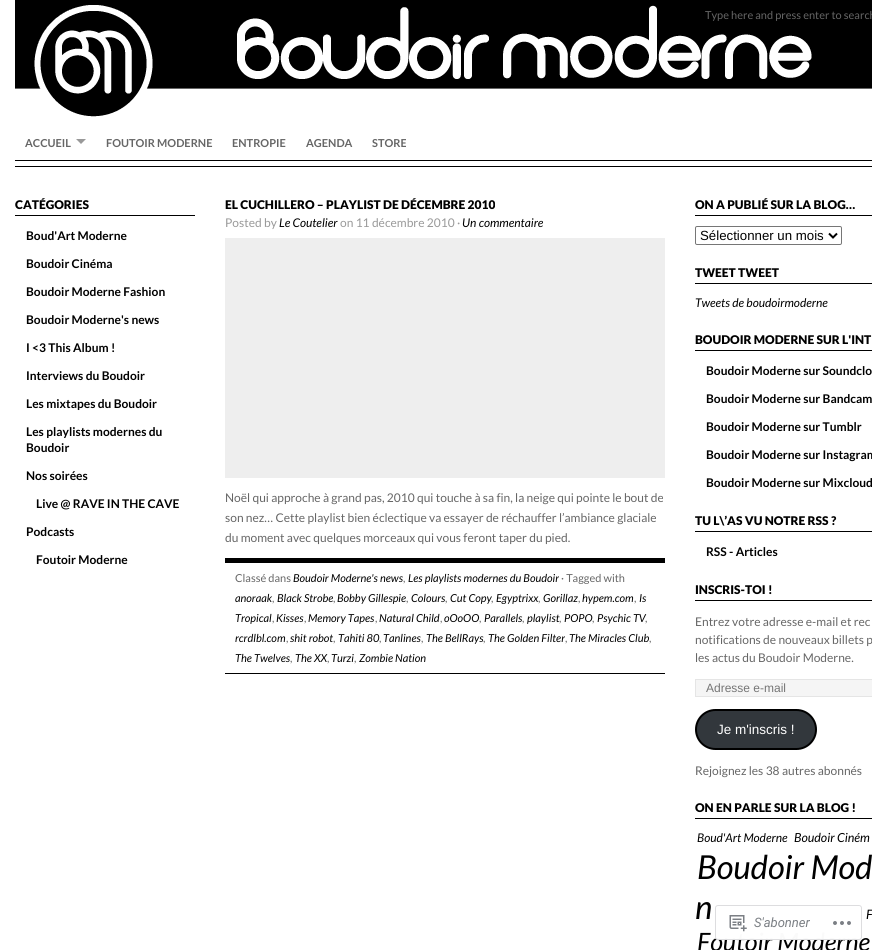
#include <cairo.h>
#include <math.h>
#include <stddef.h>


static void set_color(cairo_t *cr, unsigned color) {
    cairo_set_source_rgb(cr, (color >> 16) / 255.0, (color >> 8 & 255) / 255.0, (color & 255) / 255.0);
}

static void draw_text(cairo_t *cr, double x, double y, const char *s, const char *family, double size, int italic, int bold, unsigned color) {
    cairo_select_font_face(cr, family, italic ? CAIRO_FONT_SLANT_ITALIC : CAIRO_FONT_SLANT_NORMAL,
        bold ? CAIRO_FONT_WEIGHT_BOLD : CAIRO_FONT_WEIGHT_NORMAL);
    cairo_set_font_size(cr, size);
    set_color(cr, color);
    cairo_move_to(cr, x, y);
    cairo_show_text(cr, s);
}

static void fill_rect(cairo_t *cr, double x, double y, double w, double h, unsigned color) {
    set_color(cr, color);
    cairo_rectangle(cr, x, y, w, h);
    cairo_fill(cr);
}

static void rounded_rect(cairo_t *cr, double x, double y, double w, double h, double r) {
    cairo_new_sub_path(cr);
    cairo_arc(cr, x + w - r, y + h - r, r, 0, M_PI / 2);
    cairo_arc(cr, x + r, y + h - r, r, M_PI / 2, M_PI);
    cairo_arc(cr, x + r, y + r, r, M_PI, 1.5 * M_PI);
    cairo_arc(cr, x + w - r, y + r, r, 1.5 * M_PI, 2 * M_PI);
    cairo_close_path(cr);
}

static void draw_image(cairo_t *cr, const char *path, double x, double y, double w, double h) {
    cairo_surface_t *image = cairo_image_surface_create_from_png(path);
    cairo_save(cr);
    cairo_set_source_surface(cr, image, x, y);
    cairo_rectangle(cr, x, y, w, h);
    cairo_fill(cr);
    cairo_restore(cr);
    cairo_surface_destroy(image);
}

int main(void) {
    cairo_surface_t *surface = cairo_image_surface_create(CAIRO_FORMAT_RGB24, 872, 950);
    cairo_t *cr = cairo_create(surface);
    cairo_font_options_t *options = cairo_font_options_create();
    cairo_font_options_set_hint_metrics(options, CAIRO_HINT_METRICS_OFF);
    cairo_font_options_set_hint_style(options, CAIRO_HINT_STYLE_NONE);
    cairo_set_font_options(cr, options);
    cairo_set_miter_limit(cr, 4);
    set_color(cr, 0xFFFFFF);
    cairo_paint(cr);
    draw_image(cr, "assets/img1.png", 15, 0, 857, 117);
    draw_text(cr, 705, 19, "Type here and press enter to search", "Lato", 11, 0, 0, 0x666666);
    fill_rect(cr, 15, 160, 857, 1, 0x000000);
    draw_text(cr, 25, 147, "ACCUEIL", "Lato", 11, 0, 1, 0x666666);
    set_color(cr, 0x999999);
    cairo_new_path(cr);
    cairo_move_to(cr, 76, 139);
    cairo_line_to(cr, 86, 139);
    cairo_line_to(cr, 81, 144);
    cairo_close_path(cr);
    cairo_fill(cr);
    draw_text(cr, 106, 147, "FOUTOIR MODERNE", "Lato", 11, 0, 1, 0x666666);
    draw_text(cr, 232, 147, "ENTROPIE", "Lato", 11, 0, 1, 0x666666);
    draw_text(cr, 306, 147, "AGENDA", "Lato", 11, 0, 1, 0x666666);
    draw_text(cr, 372, 147, "STORE", "Lato", 11, 0, 1, 0x666666);
    fill_rect(cr, 15, 166, 857, 1, 0x000000);
    fill_rect(cr, 15, 215, 180, 1, 0x000000);
    draw_text(cr, 15, 209, "CATÉGORIES", "Lato Black", 12, 0, 0, 0x000000);
    draw_text(cr, 26, 240, "Boud'Art Moderne", "Lato", 12, 0, 1, 0x000000);
    draw_text(cr, 26, 268, "Boudoir Cinéma", "Lato", 12, 0, 1, 0x000000);
    draw_text(cr, 26, 296, "Boudoir Moderne Fashion", "Lato", 12, 0, 1, 0x000000);
    draw_text(cr, 26, 324, "Boudoir Moderne's news", "Lato", 12, 0, 1, 0x000000);
    draw_text(cr, 26, 352, "I <3 This Album !", "Lato", 12, 0, 1, 0x000000);
    draw_text(cr, 26, 380, "Interviews du Boudoir", "Lato", 12, 0, 1, 0x000000);
    draw_text(cr, 26, 408, "Les mixtapes du Boudoir", "Lato", 12, 0, 1, 0x000000);
    draw_text(cr, 26, 436, "Les playlists modernes du", "Lato", 12, 0, 1, 0x000000);
    draw_text(cr, 26, 452, "Boudoir", "Lato", 12, 0, 1, 0x000000);
    draw_text(cr, 26, 480, "Nos soirées", "Lato", 12, 0, 1, 0x000000);
    draw_text(cr, 36, 508, "Live @ RAVE IN THE CAVE", "Lato", 12, 0, 1, 0x000000);
    draw_text(cr, 26, 536, "Podcasts", "Lato", 12, 0, 1, 0x000000);
    draw_text(cr, 36, 564, "Foutoir Moderne", "Lato", 12, 0, 1, 0x000000);
    draw_text(cr, 225, 209, "EL CUCHILLERO – PLAYLIST DE DÉCEMBRE 2010", "Lato Black", 12, 0, 0, 0x000000);
    draw_text(cr, 225, 227, "Posted by", "Lato", 12, 0, 0, 0x999999);
    draw_text(cr, 279, 227, "Le Coutelier", "Lato", 12, 1, 0, 0x000000);
    draw_text(cr, 340, 227, "on 11 décembre 2010 ·", "Lato", 12, 0, 0, 0x999999);
    draw_text(cr, 462, 227, "Un commentaire", "Lato", 12, 1, 0, 0x000000);
    fill_rect(cr, 225, 238, 440, 240, 0xEEEEEE);
    draw_text(cr, 225, 502, "Noël qui approche à grand pas, 2010 qui touche à sa fin, la neige qui pointe le bout de", "Lato", 12, 0, 0, 0x666666);
    draw_text(cr, 225, 522, "son nez… Cette playlist bien éclectique va essayer de réchauffer l’ambiance glaciale", "Lato", 12, 0, 0, 0x666666);
    draw_text(cr, 225, 542, "du moment avec quelques morceaux qui vous feront taper du pied.", "Lato", 12, 0, 0, 0x666666);
    fill_rect(cr, 225, 558, 440, 5, 0x000000);
    fill_rect(cr, 225, 673, 440, 1, 0x000000);
    draw_text(cr, 235, 582, "Classé dans", "Lato", 11, 0, 0, 0x666666);
    draw_text(cr, 293, 582, "Boudoir Moderne's news", "Lato", 11, 1, 0, 0x000000);
    draw_text(cr, 403, 582, ",", "Lato", 11, 0, 0, 0x666666);
    draw_text(cr, 408, 582, "Les playlists modernes du Boudoir", "Lato", 11, 1, 0, 0x000000);
    draw_text(cr, 561, 582, "· Tagged with", "Lato", 11, 0, 0, 0x666666);
    draw_text(cr, 235, 602, "anoraak", "Lato", 11, 1, 0, 0x000000);
    draw_text(cr, 277, 602, "Black Strobe", "Lato", 11, 1, 0, 0x000000);
    draw_text(cr, 337, 602, "Bobby Gillespie", "Lato", 11, 1, 0, 0x000000);
    draw_text(cr, 411, 602, "Colours", "Lato", 11, 1, 0, 0x000000);
    draw_text(cr, 450, 602, "Cut Copy", "Lato", 11, 1, 0, 0x000000);
    draw_text(cr, 496, 602, "Egyptrixx", "Lato", 11, 1, 0, 0x000000);
    draw_text(cr, 543, 602, "Gorillaz", "Lato", 11, 1, 0, 0x000000);
    draw_text(cr, 582, 602, "hypem.com", "Lato", 11, 1, 0, 0x000000);
    draw_text(cr, 639, 602, "Is", "Lato", 11, 1, 0, 0x000000);
    draw_text(cr, 272, 602, ",", "Lato", 11, 0, 0, 0x666666);
    draw_text(cr, 333, 602, ",", "Lato", 11, 0, 0, 0x666666);
    draw_text(cr, 406, 602, ",", "Lato", 11, 0, 0, 0x666666);
    draw_text(cr, 445, 602, ",", "Lato", 11, 0, 0, 0x666666);
    draw_text(cr, 491, 602, ",", "Lato", 11, 0, 0, 0x666666);
    draw_text(cr, 538, 602, ",", "Lato", 11, 0, 0, 0x666666);
    draw_text(cr, 578, 602, ",", "Lato", 11, 0, 0, 0x666666);
    draw_text(cr, 634, 602, ",", "Lato", 11, 0, 0, 0x666666);
    draw_text(cr, 235, 622, "Tropical", "Lato", 11, 1, 0, 0x000000);
    draw_text(cr, 272, 622, ",", "Lato", 11, 0, 0, 0x666666);
    draw_text(cr, 276, 622, "Kisses", "Lato", 11, 1, 0, 0x000000);
    draw_text(cr, 304, 622, ",", "Lato", 11, 0, 0, 0x666666);
    draw_text(cr, 308, 622, "Memory Tapes", "Lato", 11, 1, 0, 0x000000);
    draw_text(cr, 375, 622, ",", "Lato", 11, 0, 0, 0x666666);
    draw_text(cr, 379, 622, "Natural Child", "Lato", 11, 1, 0, 0x000000);
    draw_text(cr, 440, 622, ",", "Lato", 11, 0, 0, 0x666666);
    draw_text(cr, 444, 622, "oOoOO", "Lato", 11, 1, 0, 0x000000);
    draw_text(cr, 479, 622, ",", "Lato", 11, 0, 0, 0x666666);
    draw_text(cr, 484, 622, "Parallels", "Lato", 11, 1, 0, 0x000000);
    draw_text(cr, 527, 622, "playlist", "Lato", 11, 1, 0, 0x000000);
    draw_text(cr, 564, 622, "POPO", "Lato", 11, 1, 0, 0x000000);
    draw_text(cr, 597, 622, "Psychic TV", "Lato", 11, 1, 0, 0x000000);
    draw_text(cr, 522, 622, ",", "Lato", 11, 0, 0, 0x666666);
    draw_text(cr, 559, 622, ",", "Lato", 11, 0, 0, 0x666666);
    draw_text(cr, 592, 622, ",", "Lato", 11, 0, 0, 0x666666);
    draw_text(cr, 645, 622, ",", "Lato", 11, 0, 0, 0x666666);
    draw_text(cr, 235, 642, "rcrdlbl.com", "Lato", 11, 1, 0, 0x000000);
    draw_text(cr, 286, 642, ",", "Lato", 11, 0, 0, 0x666666);
    draw_text(cr, 290, 642, "shit robot", "Lato", 11, 1, 0, 0x000000);
    draw_text(cr, 338, 642, "Tahiti 80", "Lato", 11, 1, 0, 0x000000);
    draw_text(cr, 383, 642, "Tanlines", "Lato", 11, 1, 0, 0x000000);
    draw_text(cr, 426, 642, "The BellRays", "Lato", 11, 1, 0, 0x000000);
    draw_text(cr, 488, 642, "The Golden Filter", "Lato", 11, 1, 0, 0x000000);
    draw_text(cr, 569, 642, "The Miracles Club", "Lato", 11, 1, 0, 0x000000);
    draw_text(cr, 333, 642, ",", "Lato", 11, 0, 0, 0x666666);
    draw_text(cr, 379, 642, ",", "Lato", 11, 0, 0, 0x666666);
    draw_text(cr, 421, 642, ",", "Lato", 11, 0, 0, 0x666666);
    draw_text(cr, 483, 642, ",", "Lato", 11, 0, 0, 0x666666);
    draw_text(cr, 565, 642, ",", "Lato", 11, 0, 0, 0x666666);
    draw_text(cr, 649, 642, ",", "Lato", 11, 0, 0, 0x666666);
    draw_text(cr, 235, 662, "The Twelves", "Lato", 11, 1, 0, 0x000000);
    draw_text(cr, 290, 662, ",", "Lato", 11, 0, 0, 0x666666);
    draw_text(cr, 295, 662, "The XX", "Lato", 11, 1, 0, 0x000000);
    draw_text(cr, 327, 662, ",", "Lato", 11, 0, 0, 0x666666);
    draw_text(cr, 331, 662, "Turzi", "Lato", 11, 1, 0, 0x000000);
    draw_text(cr, 354, 662, ",", "Lato", 11, 0, 0, 0x666666);
    draw_text(cr, 359, 662, "Zombie Nation", "Lato", 11, 1, 0, 0x000000);
    fill_rect(cr, 695, 215, 177, 1, 0x000000);
    draw_text(cr, 695, 209, "ON A PUBLIÉ SUR LA BLOG…", "Lato Black", 12, 0, 0, 0x000000);
    rounded_rect(cr, 695.5, 226.5, 146, 18, 1.5);
    set_color(cr, 0x767676);
    cairo_set_line_width(cr, 1);
    cairo_stroke(cr);
    cairo_new_path(cr);
    cairo_move_to(cr, 829, 233.5);
    cairo_line_to(cr, 833, 237.5);
    cairo_line_to(cr, 837, 233.5);
    set_color(cr, 0x000000);
    cairo_set_line_width(cr, 2);
    cairo_stroke(cr);
    draw_text(cr, 700, 240, "Sélectionner un mois", "Liberation Sans", 13.25, 0, 0, 0x000000);
    fill_rect(cr, 695, 283, 177, 1, 0x000000);
    draw_text(cr, 695, 277, "TWEET TWEET", "Lato Black", 12, 0, 0, 0x000000);
    draw_text(cr, 695, 307, "Tweets de boudoirmoderne", "Lato", 12, 1, 0, 0x000000);
    fill_rect(cr, 695, 350, 177, 1, 0x000000);
    draw_text(cr, 695, 344, "BOUDOIR MODERNE SUR L'INT", "Lato Black", 12, 0, 0, 0x000000);
    draw_text(cr, 706, 375, "Boudoir Moderne sur Soundclo", "Lato", 12, 0, 1, 0x000000);
    draw_text(cr, 706, 403, "Boudoir Moderne sur Bandcam", "Lato", 12, 0, 1, 0x000000);
    draw_text(cr, 706, 431, "Boudoir Moderne sur Tumblr", "Lato", 12, 0, 1, 0x000000);
    draw_text(cr, 706, 459, "Boudoir Moderne sur Instagram", "Lato", 12, 0, 1, 0x000000);
    draw_text(cr, 706, 487, "Boudoir Moderne sur Mixcloud", "Lato", 12, 0, 1, 0x000000);
    fill_rect(cr, 695, 531, 177, 1, 0x000000);
    draw_text(cr, 695, 525, "TU L\\’AS VU NOTRE RSS ?", "Lato Black", 12, 0, 0, 0x000000);
    draw_text(cr, 706, 556, "RSS - Articles", "Lato", 12, 0, 1, 0x000000);
    fill_rect(cr, 695, 600, 177, 1, 0x000000);
    draw_text(cr, 695, 594, "INSCRIS-TOI !", "Lato Black", 12, 0, 0, 0x000000);
    draw_text(cr, 695, 626, "Entrez votre adresse e-mail et rec", "Lato", 12, 0, 0, 0x666666);
    draw_text(cr, 695, 644, "notifications de nouveaux billets p", "Lato", 12, 0, 0, 0x666666);
    draw_text(cr, 695, 662, "les actus du Boudoir Moderne.", "Lato", 12, 0, 0, 0x666666);
    set_color(cr, 0xF5F5F5);
    cairo_rectangle(cr, 695.5, 679.5, 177, 17);
    cairo_fill_preserve(cr);
    set_color(cr, 0xE5E5E5);
    cairo_set_line_width(cr, 1);
    cairo_stroke(cr);
    draw_text(cr, 706, 692, "Adresse e-mail", "Liberation Sans", 12, 0, 0, 0x757575);
    set_color(cr, 0x32373C);
    rounded_rect(cr, 696, 710, 120, 39, 19.5);
    cairo_fill_preserve(cr);
    set_color(cr, 0x000000);
    cairo_set_line_width(cr, 2);
    cairo_stroke(cr);
    draw_text(cr, 717, 734, "Je m'inscris !", "Liberation Sans", 13.5, 0, 0, 0xFFFFFF);
    draw_text(cr, 695, 775, "Rejoignez les 38 autres abonnés", "Lato", 12, 0, 0, 0x666666);
    fill_rect(cr, 695, 818, 177, 1, 0x000000);
    draw_text(cr, 695, 812, "ON EN PARLE SUR LA BLOG !", "Lato Black", 12, 0, 0, 0x000000);
    draw_text(cr, 697, 842, "Boud'Art Moderne", "Lato", 12, 1, 0, 0x000000);
    draw_text(cr, 794, 842, "Boudoir Ciném", "Lato", 12.5, 1, 0, 0x000000);
    draw_text(cr, 697, 879, "Boudoir Mod", "Lato", 33, 1, 0, 0x000000);
    draw_text(cr, 695, 919, "n", "Lato", 33, 1, 0, 0x000000);
    draw_text(cr, 866, 919, "F", "Lato", 13, 1, 0, 0x000000);
    draw_text(cr, 697, 951, "Foutoir Moderne", "Lato", 25.25, 1, 0, 0x000000);
    cairo_set_source_rgba(cr, 1, 1, 1, 0.98);
    rounded_rect(cr, 715, 905, 147, 35, 3);
    cairo_fill(cr);
    rounded_rect(cr, 715.5, 905.5, 146, 34, 2.5);
    cairo_set_source_rgba(cr, 0.863, 0.863, 0.871, 0.98);
    cairo_set_line_width(cr, 1);
    cairo_stroke(cr);
    draw_image(cr, "assets/img2.png", 729, 915, 18, 17);
    draw_text(cr, 754, 927, "S'abonner", "Roboto", 13, 1, 0, 0x7B7F84);
    draw_image(cr, "assets/img3.png", 833, 921, 18, 4);
    cairo_surface_write_to_png(surface, "output.png");
    cairo_font_options_destroy(options);
    cairo_destroy(cr);
    cairo_surface_destroy(surface);
    return 0;
}
